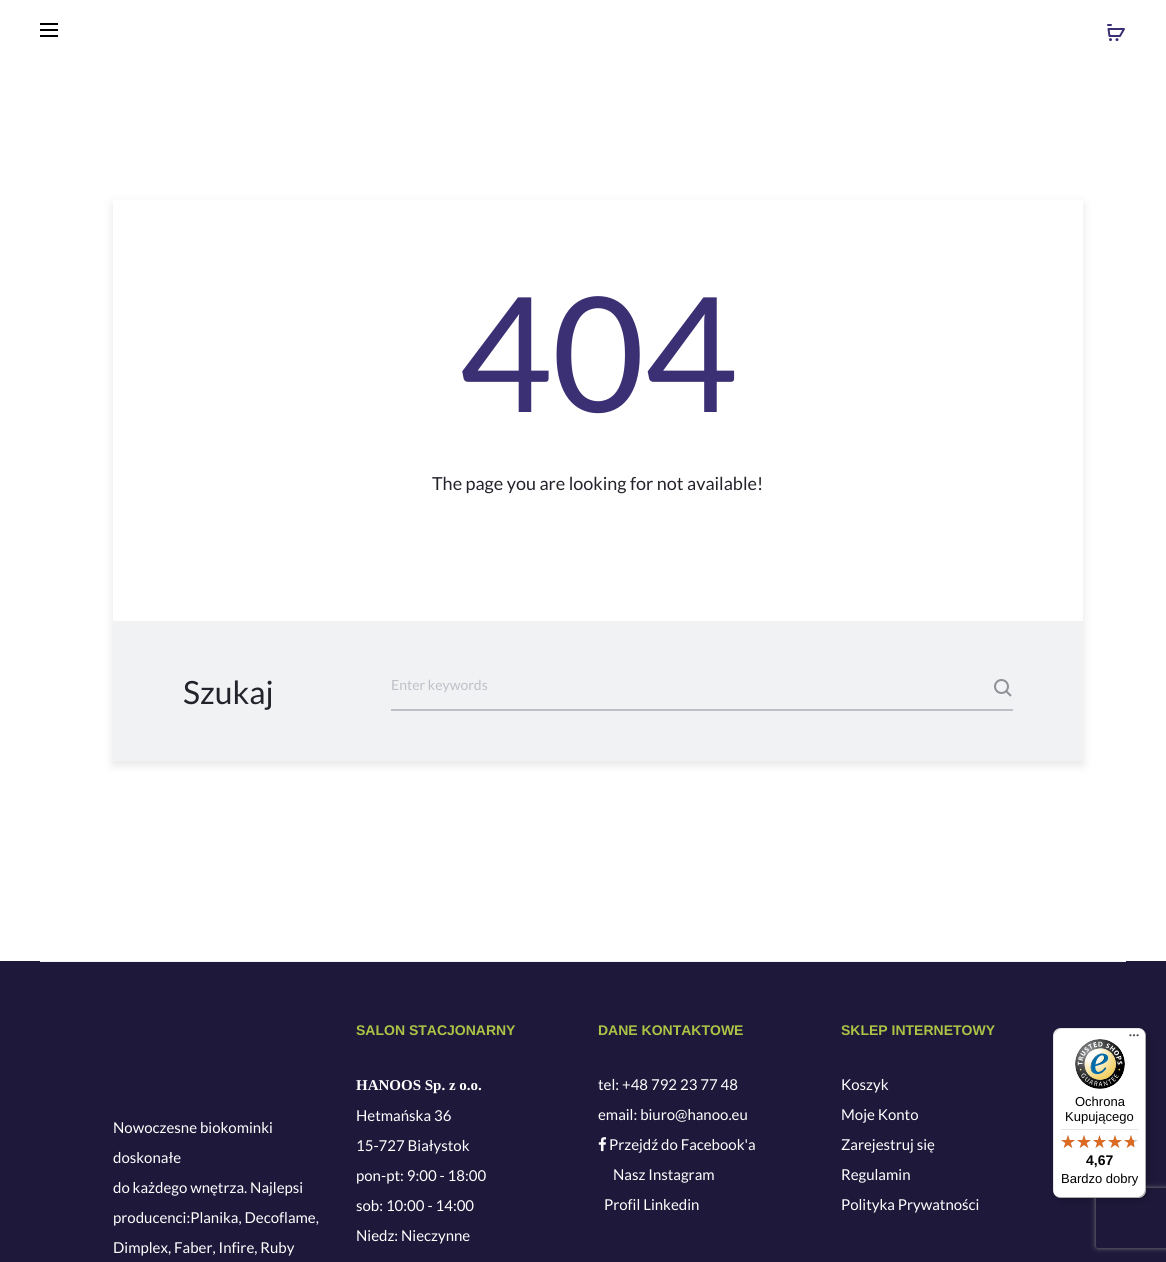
#include <cairo.h>
#include <math.h>
#include <stddef.h>


static void set_color(cairo_t *cr, unsigned color) {
    cairo_set_source_rgb(cr, (color >> 16) / 255.0, (color >> 8 & 255) / 255.0, (color & 255) / 255.0);
}

static void draw_text(cairo_t *cr, double x, double y, const char *s, const char *family, double size, int italic, int bold, unsigned color) {
    cairo_select_font_face(cr, family, italic ? CAIRO_FONT_SLANT_ITALIC : CAIRO_FONT_SLANT_NORMAL,
        bold ? CAIRO_FONT_WEIGHT_BOLD : CAIRO_FONT_WEIGHT_NORMAL);
    cairo_set_font_size(cr, size);
    set_color(cr, color);
    cairo_move_to(cr, x, y);
    cairo_show_text(cr, s);
}

static void fill_rect(cairo_t *cr, double x, double y, double w, double h, unsigned color) {
    set_color(cr, color);
    cairo_rectangle(cr, x, y, w, h);
    cairo_fill(cr);
}

static void rounded_rect(cairo_t *cr, double x, double y, double w, double h, double r) {
    cairo_new_sub_path(cr);
    cairo_arc(cr, x + w - r, y + h - r, r, 0, M_PI / 2);
    cairo_arc(cr, x + r, y + h - r, r, M_PI / 2, M_PI);
    cairo_arc(cr, x + r, y + r, r, M_PI, 1.5 * M_PI);
    cairo_arc(cr, x + w - r, y + r, r, 1.5 * M_PI, 2 * M_PI);
    cairo_close_path(cr);
}

static void draw_shadow(cairo_t *cr, double x, double y, double w, double h, double r, double blur, double alpha) {
    cairo_push_group_with_content(cr, CAIRO_CONTENT_ALPHA);
    cairo_set_operator(cr, CAIRO_OPERATOR_SOURCE);
    for (int i = 15; i >= -15 && fmin(w, h) + blur * i / 3 > 0; i -= 2) {
        double e = blur * i / 6;
        cairo_set_source_rgba(cr, 0, 0, 0, alpha * erfc((i - 1) / 8.5) / 2);
        rounded_rect(cr, x - e, y - e, w + 2 * e, h + 2 * e, fmax(0, fmin(r + e + blur * .6, fmin(w, h) / 2 + e)));
        cairo_fill(cr);
    }
    cairo_pattern_t *soft = cairo_pop_group(cr);
    cairo_mask(cr, soft);
    cairo_pattern_destroy(soft);
}

static void draw_image(cairo_t *cr, const char *path, double x, double y, double w, double h) {
    cairo_surface_t *image = cairo_image_surface_create_from_png(path);
    cairo_save(cr);
    cairo_set_source_surface(cr, image, x, y);
    cairo_rectangle(cr, x, y, w, h);
    cairo_fill(cr);
    cairo_restore(cr);
    cairo_surface_destroy(image);
}

int main(void) {
    cairo_surface_t *surface = cairo_image_surface_create(CAIRO_FORMAT_RGB24, 1166, 1262);
    cairo_t *cr = cairo_create(surface);
    cairo_font_options_t *options = cairo_font_options_create();
    cairo_font_options_set_hint_metrics(options, CAIRO_HINT_METRICS_OFF);
    cairo_font_options_set_hint_style(options, CAIRO_HINT_STYLE_NONE);
    cairo_set_font_options(cr, options);
    cairo_set_miter_limit(cr, 4);
    set_color(cr, 0xFFFFFF);
    cairo_paint(cr);
    fill_rect(cr, 40, 29, 18, 2, 0x000000);
    fill_rect(cr, 40, 23, 18, 2, 0x000000);
    fill_rect(cr, 40, 35, 18, 2, 0x000000);
    draw_image(cr, "assets/img1.png", 1107, 24, 18, 18);
    cairo_save(cr);
    cairo_set_fill_rule(cr, CAIRO_FILL_RULE_EVEN_ODD);
    cairo_new_path(cr);
    cairo_move_to(cr, 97, 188);
    cairo_line_to(cr, 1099, 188);
    cairo_line_to(cr, 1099, 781);
    cairo_line_to(cr, 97, 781);
    cairo_close_path(cr);
    cairo_move_to(cr, 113, 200);
    cairo_line_to(cr, 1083, 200);
    cairo_line_to(cr, 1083, 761);
    cairo_line_to(cr, 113, 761);
    cairo_close_path(cr);
    cairo_clip(cr);
    set_color(cr, 0x030303);
    draw_shadow(cr, 113, 204, 970, 561, 0, 5, 0.1);
    cairo_restore(cr);
    draw_text(cr, 459, 412, "404", "Lato", 160, 0, 0, 0x3B3074);
    draw_text(cr, 432, 490, "The page you are looking for not available!", "Lato", 18, 0, 0, 0x23232C);
    fill_rect(cr, 113, 621, 970, 140, 0xF1F2F4);
    draw_text(cr, 183, 704, "Szukaj", "Lato", 32, 0, 0, 0x23232C);
    fill_rect(cr, 391, 709, 622, 2, 0xBFBFC8);
    draw_text(cr, 391, 690, "Enter keywords", "Lato", 14, 0, 0, 0xBFBFC8);
    cairo_new_path(cr);
    cairo_arc(cr, 1001.5, 686.5, 6.5, 0, 2 * M_PI);
    set_color(cr, 0x909097);
    cairo_stroke(cr);
    cairo_new_path(cr);
    cairo_move_to(cr, 1006, 691);
    cairo_line_to(cr, 1011, 696);
    cairo_stroke(cr);
    fill_rect(cr, 0, 961, 1166, 301, 0x1E183A);
    fill_rect(cr, 40, 961, 1086, 1, 0xF1F2F4);
    draw_text(cr, 113, 1133, "Nowoczesne biokominki", "Lato", 15, 0, 0, 0xFFFFFF);
    draw_text(cr, 113, 1163, "doskonałe", "Lato", 15, 0, 0, 0xFFFFFF);
    draw_text(cr, 113, 1193, "do każdego wnętrza. Najlepsi", "Lato", 15, 0, 0, 0xFFFFFF);
    draw_text(cr, 113, 1223, "producenci:Planika, Decoflame,", "Lato", 15, 0, 0, 0xFFFFFF);
    draw_text(cr, 113, 1253, "Dimplex, Faber, Infire, Ruby", "Lato", 15, 0, 0, 0xFFFFFF);
    draw_text(cr, 356, 1035, "SALON STACJONARNY", "Liberation Sans", 14, 0, 1, 0xABC445);
    draw_text(cr, 356, 1090, "HANOOS Sp. z o.o.", "Liberation Serif", 15, 0, 1, 0xFFFFFF);
    draw_text(cr, 356, 1121, "Hetmańska 36", "Lato", 15, 0, 0, 0xFFFFFF);
    draw_text(cr, 356, 1151, "15-727 Białystok", "Lato", 15, 0, 0, 0xFFFFFF);
    draw_text(cr, 356, 1181, "pon-pt: 9:00 - 18:00", "Lato", 15, 0, 0, 0xFFFFFF);
    draw_text(cr, 356, 1211, "sob: 10:00 - 14:00", "Lato", 15, 0, 0, 0xFFFFFF);
    draw_text(cr, 356, 1241, "Niedz: Nieczynne", "Lato", 15, 0, 0, 0xFFFFFF);
    draw_text(cr, 598, 1035, "DANE KONTAKTOWE", "Liberation Sans", 14, 0, 1, 0xABC445);
    draw_text(cr, 598, 1090, "tel: +48 792 23 77 48", "Lato", 15, 0, 0, 0xFFFFFF);
    draw_text(cr, 598, 1120, "email: biuro@hanoo.eu", "Lato", 15, 0, 0, 0xFFFFFF);
    draw_image(cr, "assets/img2.png", 598, 1137, 9, 15);
    draw_text(cr, 609, 1150, "Przejdź do Facebook'a", "Lato", 15, 0, 0, 0xFFFFFF);
    draw_text(cr, 613, 1180, "Nasz Instagram", "Lato", 15, 0, 0, 0xFFFFFF);
    draw_text(cr, 604, 1210, "Profil Linkedin", "Lato", 15, 0, 0, 0xFFFFFF);
    draw_text(cr, 841, 1035, "SKLEP INTERNETOWY", "Liberation Sans", 14, 0, 1, 0xABC445);
    draw_text(cr, 841, 1090, "Koszyk", "Lato", 15, 0, 0, 0xFFFFFF);
    draw_text(cr, 841, 1120, "Moje Konto", "Lato", 15, 0, 0, 0xFFFFFF);
    draw_text(cr, 841, 1150, "Zarejestruj się", "Lato", 15, 0, 0, 0xFFFFFF);
    draw_text(cr, 841, 1180, "Regulamin", "Lato", 15, 0, 0, 0xFFFFFF);
    draw_text(cr, 841, 1210, "Polityka Prywatności", "Lato", 15, 0, 0, 0xFFFFFF);
    set_color(cr, 0x000000);
    draw_shadow(cr, 1056, 1031, 93, 170, 8, 4, 0.15);
    draw_shadow(cr, 1054, 1029, 93, 170, 8, 1, 0.15);
    cairo_save(cr);
    cairo_set_fill_rule(cr, CAIRO_FILL_RULE_EVEN_ODD);
    cairo_new_path(cr);
    cairo_move_to(cr, 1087, 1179);
    cairo_line_to(cr, 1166, 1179);
    cairo_line_to(cr, 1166, 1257);
    cairo_line_to(cr, 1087, 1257);
    cairo_close_path(cr);
    cairo_move_to(cr, 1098, 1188);
    cairo_line_to(cr, 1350, 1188);
    cairo_curve_to(cr, 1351, 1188, 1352, 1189, 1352, 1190);
    cairo_line_to(cr, 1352, 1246);
    cairo_curve_to(cr, 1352, 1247, 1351, 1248, 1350, 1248);
    cairo_line_to(cr, 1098, 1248);
    cairo_curve_to(cr, 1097, 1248, 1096, 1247, 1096, 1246);
    cairo_line_to(cr, 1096, 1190);
    cairo_curve_to(cr, 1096, 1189, 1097, 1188, 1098, 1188);
    cairo_close_path(cr);
    cairo_clip(cr);
    set_color(cr, 0x808080);
    draw_shadow(cr, 1096, 1188, 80, 60, 2, 2.5, 1);
    cairo_restore(cr);
    set_color(cr, 0xFFFFFF);
    rounded_rect(cr, 1053, 1028, 93, 170, 8);
    cairo_fill(cr);
    cairo_set_source_rgba(cr, 0, 0, 0, 0.1);
    cairo_new_path(cr);
    cairo_move_to(cr, 1062, 1029);
    cairo_line_to(cr, 1139, 1029);
    cairo_curve_to(cr, 1141, 1029, 1143, 1030, 1145, 1032);
    cairo_curve_to(cr, 1143, 1030, 1141, 1028, 1138, 1028);
    cairo_line_to(cr, 1061, 1028);
    cairo_curve_to(cr, 1057, 1028, 1053, 1032, 1053, 1036);
    cairo_line_to(cr, 1053, 1190);
    cairo_curve_to(cr, 1053, 1193, 1055, 1195, 1057, 1197);
    cairo_curve_to(cr, 1055, 1195, 1054, 1193, 1054, 1191);
    cairo_line_to(cr, 1054, 1037);
    cairo_curve_to(cr, 1054, 1033, 1058, 1029, 1062, 1029);
    cairo_close_path(cr);
    cairo_fill(cr);
    cairo_set_source_rgba(cr, 0, 0, 0, 0.2);
    cairo_new_path(cr);
    cairo_move_to(cr, 1054, 1194);
    cairo_curve_to(cr, 1056, 1196, 1058, 1198, 1061, 1198);
    cairo_line_to(cr, 1138, 1198);
    cairo_curve_to(cr, 1142, 1198, 1146, 1194, 1146, 1190);
    cairo_line_to(cr, 1146, 1036);
    cairo_curve_to(cr, 1146, 1033, 1144, 1031, 1142, 1029);
    cairo_curve_to(cr, 1144, 1031, 1145, 1033, 1145, 1035);
    cairo_line_to(cr, 1145, 1189);
    cairo_curve_to(cr, 1145, 1193, 1141, 1197, 1137, 1197);
    cairo_line_to(cr, 1060, 1197);
    cairo_curve_to(cr, 1058, 1197, 1056, 1196, 1054, 1194);
    cairo_close_path(cr);
    cairo_fill(cr);
    cairo_set_source_rgba(cr, 0.196, 0.196, 0.196, 0.2);
    cairo_new_path(cr);
    cairo_move_to(cr, 1055, 1195);
    cairo_curve_to(cr, 1056, 1197, 1059, 1198, 1061, 1198);
    cairo_line_to(cr, 1138, 1198);
    cairo_curve_to(cr, 1142, 1198, 1146, 1194, 1146, 1190);
    cairo_line_to(cr, 1146, 1036);
    cairo_curve_to(cr, 1146, 1034, 1145, 1031, 1143, 1030);
    cairo_curve_to(cr, 1144, 1031, 1145, 1033, 1145, 1035);
    cairo_line_to(cr, 1145, 1189);
    cairo_curve_to(cr, 1145, 1194, 1142, 1197, 1137, 1197);
    cairo_line_to(cr, 1060, 1197);
    cairo_curve_to(cr, 1058, 1197, 1056, 1196, 1055, 1195);
    cairo_close_path(cr);
    cairo_fill(cr);
    draw_image(cr, "assets/img3.png", 1129, 1034, 10, 3);
    cairo_set_source_rgba(cr, 1, 1, 1, 0.3);
    cairo_new_path(cr);
    cairo_move_to(cr, 1138, 1198);
    cairo_curve_to(cr, 1142.5, 1198, 1146, 1194.5, 1146, 1190);
    cairo_curve_to(cr, 1146, 1194, 1142, 1198, 1138, 1198);
    cairo_close_path(cr);
    cairo_fill(cr);
    draw_image(cr, "assets/img4.png", 1075, 1039, 50, 50);
    draw_text(cr, 1075, 1106, "Ochrona", "Liberation Sans", 13, 0, 0, 0x000000);
    draw_text(cr, 1065, 1121, "Kupującego", "Liberation Sans", 13, 0, 0, 0x000000);
    fill_rect(cr, 1061, 1129, 77, 1, 0xE5E5E5);
    draw_image(cr, "assets/img5.png", 1061, 1135, 14, 13);
    draw_image(cr, "assets/img5.png", 1077, 1135, 14, 13);
    draw_image(cr, "assets/img6.png", 1093, 1135, 13, 13);
    draw_image(cr, "assets/img5.png", 1108, 1135, 14, 13);
    draw_image(cr, "assets/img5.png", 1124, 1135, 14, 13);
    draw_image(cr, "assets/img7.png", 1061, 1135, 14, 13);
    draw_image(cr, "assets/img7.png", 1077, 1135, 14, 13);
    draw_image(cr, "assets/img8.png", 1093, 1135, 13, 13);
    draw_image(cr, "assets/img7.png", 1108, 1135, 14, 13);
    draw_image(cr, "assets/img9.png", 1124, 1135, 10, 13);
    draw_text(cr, 1086, 1165, "4,67", "Liberation Sans", 14, 0, 1, 0x000000);
    draw_text(cr, 1061, 1183, "Bardzo dobry", "Liberation Sans", 13, 0, 0, 0x000000);
    cairo_surface_write_to_png(surface, "output.png");
    cairo_font_options_destroy(options);
    cairo_destroy(cr);
    cairo_surface_destroy(surface);
    return 0;
}
